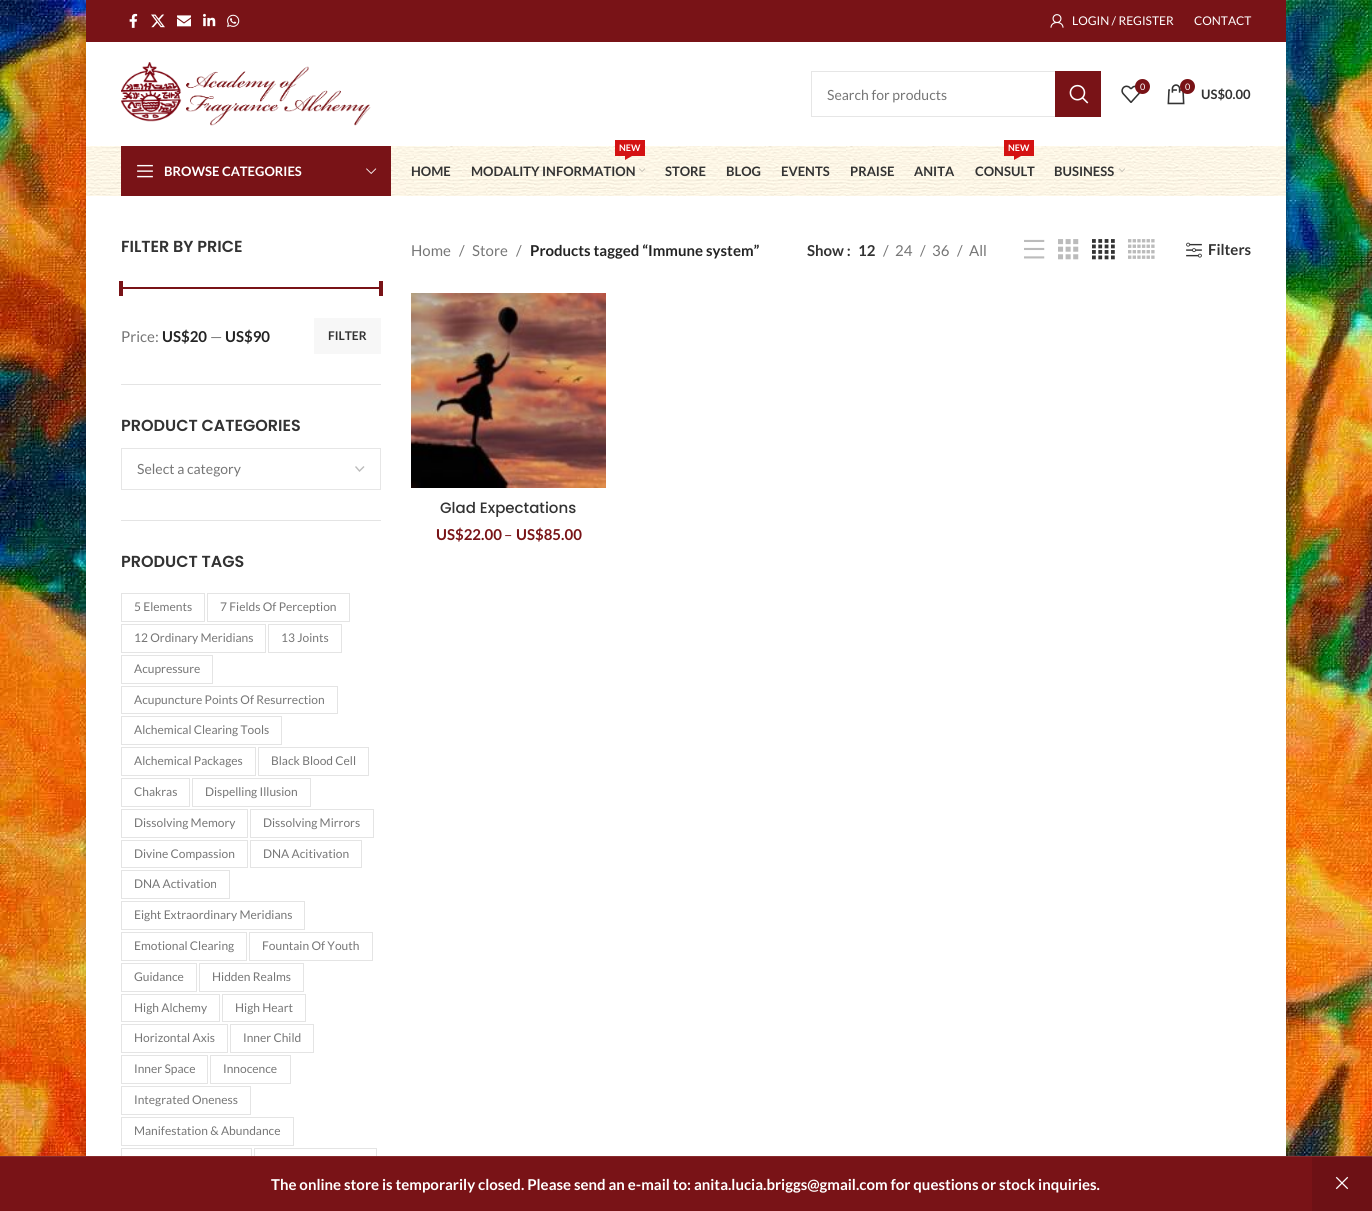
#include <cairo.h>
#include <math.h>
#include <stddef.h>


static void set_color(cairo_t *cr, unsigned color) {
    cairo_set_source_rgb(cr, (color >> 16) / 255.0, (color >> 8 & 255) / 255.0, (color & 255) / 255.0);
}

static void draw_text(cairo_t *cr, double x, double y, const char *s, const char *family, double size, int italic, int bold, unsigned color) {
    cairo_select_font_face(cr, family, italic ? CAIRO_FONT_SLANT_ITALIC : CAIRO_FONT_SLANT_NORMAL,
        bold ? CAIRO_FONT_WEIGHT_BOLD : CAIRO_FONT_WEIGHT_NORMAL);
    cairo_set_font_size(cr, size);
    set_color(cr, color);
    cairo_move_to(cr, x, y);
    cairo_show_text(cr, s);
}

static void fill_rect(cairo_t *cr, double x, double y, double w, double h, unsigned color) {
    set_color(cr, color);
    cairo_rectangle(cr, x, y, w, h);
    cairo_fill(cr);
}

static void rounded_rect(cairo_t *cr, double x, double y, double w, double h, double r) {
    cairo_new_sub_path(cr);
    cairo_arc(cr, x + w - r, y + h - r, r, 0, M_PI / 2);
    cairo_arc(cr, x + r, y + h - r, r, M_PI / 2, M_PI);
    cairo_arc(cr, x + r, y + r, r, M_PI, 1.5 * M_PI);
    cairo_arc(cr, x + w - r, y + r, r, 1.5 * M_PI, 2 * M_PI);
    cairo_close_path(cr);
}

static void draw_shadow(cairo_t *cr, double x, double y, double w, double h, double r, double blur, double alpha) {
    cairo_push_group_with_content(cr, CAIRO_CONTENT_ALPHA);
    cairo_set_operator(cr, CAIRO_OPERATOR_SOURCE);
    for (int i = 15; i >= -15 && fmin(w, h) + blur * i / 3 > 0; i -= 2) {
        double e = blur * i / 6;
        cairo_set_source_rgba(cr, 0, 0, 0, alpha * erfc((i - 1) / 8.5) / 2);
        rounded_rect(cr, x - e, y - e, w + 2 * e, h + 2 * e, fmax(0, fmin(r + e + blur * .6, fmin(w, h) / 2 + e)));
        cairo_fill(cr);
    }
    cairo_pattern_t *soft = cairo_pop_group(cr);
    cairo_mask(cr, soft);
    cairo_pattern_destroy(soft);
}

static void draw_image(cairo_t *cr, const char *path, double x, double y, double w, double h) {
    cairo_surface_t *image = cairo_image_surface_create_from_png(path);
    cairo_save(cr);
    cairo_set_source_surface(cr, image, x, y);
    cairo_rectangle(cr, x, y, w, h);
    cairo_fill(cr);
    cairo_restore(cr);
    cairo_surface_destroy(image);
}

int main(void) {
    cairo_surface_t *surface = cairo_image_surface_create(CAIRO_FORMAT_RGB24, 1372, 1211);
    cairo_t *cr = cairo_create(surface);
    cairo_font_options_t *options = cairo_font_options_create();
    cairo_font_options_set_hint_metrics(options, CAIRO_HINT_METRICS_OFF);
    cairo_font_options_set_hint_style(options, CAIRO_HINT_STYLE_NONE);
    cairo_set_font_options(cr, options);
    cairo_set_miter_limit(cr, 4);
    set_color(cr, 0xFFFFFF);
    cairo_paint(cr);
    draw_image(cr, "assets/img1.png", 0, 0, 1372, 1156);
    set_color(cr, 0x000000);
    draw_shadow(cr, 86, 1, 1200, 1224, 0, 4.5, 0.08);
    fill_rect(cr, 86, 42, 1200, 1114, 0xFFFFFF);
    fill_rect(cr, 86, 0, 1200, 42, 0x791317);
    draw_image(cr, "assets/img2.png", 129, 13, 9, 15);
    draw_image(cr, "assets/img3.png", 151, 14, 14, 14);
    draw_image(cr, "assets/img4.png", 177, 15, 14, 12);
    draw_image(cr, "assets/img5.png", 203, 13, 13, 14);
    draw_image(cr, "assets/img6.png", 227, 14, 13, 13);
    draw_image(cr, "assets/img7.png", 1050, 14, 14, 14);
    draw_text(cr, 1072, 25, "LOGIN / REGISTER", "Lato", 12, 0, 0, 0xFFFFFF);
    draw_text(cr, 1194, 25, "CONTACT", "Lato", 12, 0, 0, 0xFFFFFF);
    draw_image(cr, "assets/img8.png", 121, 62, 250, 64);
    cairo_rectangle(cr, 811.5, 71.5, 289, 45);
    set_color(cr, 0xE6E6E6);
    cairo_set_line_width(cr, 1);
    cairo_stroke(cr);
    draw_text(cr, 827, 100, "Search for products", "Lato", 14, 0, 0, 0x767676);
    fill_rect(cr, 1055, 71, 46, 46, 0x791317);
    draw_image(cr, "assets/img9.png", 1069, 84, 20, 20);
    draw_image(cr, "assets/img10.png", 1121, 85, 20, 18);
    cairo_arc(cr, 1142.5, 86.5, 7.5, 0, 2 * M_PI);
    cairo_fill(cr);
    draw_text(cr, 1140, 90, "0", "Lato", 9, 0, 0, 0xFFFFFF);
    draw_image(cr, "assets/img11.png", 1167, 84, 18, 21);
    set_color(cr, 0x791317);
    cairo_arc(cr, 1187.5, 86.5, 7.5, 0, 2 * M_PI);
    cairo_fill(cr);
    draw_text(cr, 1185, 90, "0", "Lato", 9, 0, 0, 0xFFFFFF);
    draw_text(cr, 1201, 99, "US$0.00", "Lato", 13, 0, 1, 0x333333);
    draw_image(cr, "assets/img12.png", 86, 146, 1200, 50);
    fill_rect(cr, 121, 146, 270, 50, 0x791317);
    draw_image(cr, "assets/img13.png", 137, 164, 16, 14);
    draw_text(cr, 164, 176, "BROWSE CATEGORIES", "Lato", 13, 0, 1, 0xFFFFFF);
    draw_image(cr, "assets/img14.png", 366, 168, 11, 6);
    draw_text(cr, 411, 176, "HOME", "Lato", 13, 0, 1, 0x333333);
    fill_rect(cr, 615, 140, 30, 16, 0xD41212);
    draw_text(cr, 619, 151, "NEW", "Lato", 9, 0, 1, 0xFFFFFF);
    set_color(cr, 0xD41212);
    cairo_new_path(cr);
    cairo_move_to(cr, 625, 156);
    cairo_line_to(cr, 632, 156);
    cairo_line_to(cr, 625, 160);
    cairo_close_path(cr);
    cairo_fill(cr);
    draw_text(cr, 471, 176, "MODALITY INFORMATION", "Lato", 13, 0, 1, 0x333333);
    draw_image(cr, "assets/img15.png", 639, 168, 6, 4);
    draw_text(cr, 665, 176, "STORE", "Lato", 13, 0, 1, 0x333333);
    draw_text(cr, 726, 176, "BLOG", "Lato", 13, 0, 1, 0x333333);
    draw_text(cr, 781, 176, "EVENTS", "Lato", 13, 0, 1, 0x333333);
    draw_text(cr, 850, 176, "PRAISE", "Lato", 13, 0, 1, 0x333333);
    draw_text(cr, 914, 176, "ANITA", "Lato", 13, 0, 1, 0x333333);
    fill_rect(cr, 1004, 140, 30, 16, 0xD41212);
    draw_text(cr, 1008, 151, "NEW", "Lato", 9, 0, 1, 0xFFFFFF);
    set_color(cr, 0xD41212);
    cairo_new_path(cr);
    cairo_move_to(cr, 1014, 156);
    cairo_line_to(cr, 1021, 156);
    cairo_line_to(cr, 1014, 160);
    cairo_close_path(cr);
    cairo_fill(cr);
    draw_text(cr, 975, 176, "CONSULT", "Lato", 13, 0, 1, 0x333333);
    draw_text(cr, 1054, 176, "BUSINESS", "Lato", 13, 0, 1, 0x333333);
    draw_image(cr, "assets/img16.png", 1119, 168, 6, 4);
    fill_rect(cr, 121, 384, 260, 1, 0xE4E4E4);
    draw_text(cr, 121, 252, "FILTER BY PRICE", "Poppins SemiBold", 16, 0, 0, 0x333333);
    fill_rect(cr, 121, 287, 260, 2, 0x791317);
    fill_rect(cr, 119, 281, 4, 15, 0x791317);
    fill_rect(cr, 379, 281, 4, 15, 0x791317);
    draw_text(cr, 121, 342, "Price:", "Lato", 15, 0, 0, 0x767676);
    draw_text(cr, 162, 342, "US$20", "Lato", 15, 0, 1, 0x242424);
    draw_text(cr, 210, 342, "—", "Lato", 15, 0, 0, 0x767676);
    draw_text(cr, 225, 342, "US$90", "Lato", 15, 0, 1, 0x242424);
    fill_rect(cr, 314, 318, 67, 36, 0xF7F7F7);
    draw_text(cr, 328, 340, "FILTER", "Lato", 12, 0, 1, 0x333333);
    fill_rect(cr, 121, 520, 260, 1, 0xE4E4E4);
    draw_text(cr, 121, 431, "PRODUCT CATEGORIES", "Poppins SemiBold", 16, 0, 0, 0x333333);
    cairo_rectangle(cr, 121.5, 448.5, 259, 41);
    set_color(cr, 0xE6E6E6);
    cairo_stroke(cr);
    draw_text(cr, 137, 474, "Select a category", "Lato", 14, 0, 0, 0x767676);
    cairo_new_path(cr);
    cairo_move_to(cr, 355.5, 466.5);
    cairo_line_to(cr, 359.5, 471);
    cairo_line_to(cr, 364, 466.5);
    set_color(cr, 0xBBBBBB);
    cairo_set_line_width(cr, 1.4);
    cairo_stroke(cr);
    draw_text(cr, 121, 567, "PRODUCT TAGS", "Poppins SemiBold", 16, 0, 0, 0x333333);
    cairo_rectangle(cr, 121.5, 593.5, 83, 28);
    set_color(cr, 0xE4E4E4);
    cairo_set_line_width(cr, 1);
    cairo_stroke(cr);
    draw_text(cr, 134, 611, "5 Elements", "Lato", 12, 0, 0, 0x767676);
    cairo_rectangle(cr, 207.5, 593.5, 142, 28);
    set_color(cr, 0xE4E4E4);
    cairo_stroke(cr);
    draw_text(cr, 220, 611, "7 Fields Of Perception", "Lato", 12, 0, 0, 0x767676);
    cairo_rectangle(cr, 121.5, 624.5, 144, 28);
    set_color(cr, 0xE4E4E4);
    cairo_stroke(cr);
    draw_text(cr, 134, 642, "12 Ordinary Meridians", "Lato", 12, 0, 0, 0x767676);
    cairo_rectangle(cr, 268.5, 624.5, 73, 28);
    set_color(cr, 0xE4E4E4);
    cairo_stroke(cr);
    draw_text(cr, 281, 642, "13 Joints", "Lato", 12, 0, 0, 0x767676);
    cairo_rectangle(cr, 121.5, 655.5, 91, 28);
    set_color(cr, 0xE4E4E4);
    cairo_stroke(cr);
    draw_text(cr, 134, 673, "Acupressure", "Lato", 12, 0, 0, 0x767676);
    cairo_rectangle(cr, 121.5, 686.5, 216, 27);
    set_color(cr, 0xE4E4E4);
    cairo_stroke(cr);
    draw_text(cr, 134, 704, "Acupuncture Points Of Resurrection", "Lato", 12, 0, 0, 0x767676);
    cairo_rectangle(cr, 121.5, 716.5, 160, 28);
    set_color(cr, 0xE4E4E4);
    cairo_stroke(cr);
    draw_text(cr, 134, 734, "Alchemical Clearing Tools", "Lato", 12, 0, 0, 0x767676);
    cairo_rectangle(cr, 121.5, 747.5, 134, 28);
    set_color(cr, 0xE4E4E4);
    cairo_stroke(cr);
    draw_text(cr, 134, 765, "Alchemical Packages", "Lato", 12, 0, 0, 0x767676);
    cairo_rectangle(cr, 258.5, 747.5, 110, 28);
    set_color(cr, 0xE4E4E4);
    cairo_stroke(cr);
    draw_text(cr, 271, 765, "Black Blood Cell", "Lato", 12, 0, 0, 0x767676);
    cairo_rectangle(cr, 121.5, 778.5, 68, 28);
    set_color(cr, 0xE4E4E4);
    cairo_stroke(cr);
    draw_text(cr, 134, 796, "Chakras", "Lato", 12, 0, 0, 0x767676);
    cairo_rectangle(cr, 192.5, 778.5, 118, 28);
    set_color(cr, 0xE4E4E4);
    cairo_stroke(cr);
    draw_text(cr, 205, 796, "Dispelling Illusion", "Lato", 12, 0, 0, 0x767676);
    cairo_rectangle(cr, 121.5, 809.5, 126, 28);
    set_color(cr, 0xE4E4E4);
    cairo_stroke(cr);
    draw_text(cr, 134, 827, "Dissolving Memory", "Lato", 12, 0, 0, 0x767676);
    cairo_rectangle(cr, 250.5, 809.5, 123, 28);
    set_color(cr, 0xE4E4E4);
    cairo_stroke(cr);
    draw_text(cr, 263, 827, "Dissolving Mirrors", "Lato", 12, 0, 0, 0x767676);
    cairo_rectangle(cr, 121.5, 840.5, 126, 27);
    set_color(cr, 0xE4E4E4);
    cairo_stroke(cr);
    draw_text(cr, 134, 858, "Divine Compassion", "Lato", 12, 0, 0, 0x767676);
    cairo_rectangle(cr, 250.5, 840.5, 111, 27);
    set_color(cr, 0xE4E4E4);
    cairo_stroke(cr);
    draw_text(cr, 263, 858, "DNA Acitivation", "Lato", 12, 0, 0, 0x767676);
    cairo_rectangle(cr, 121.5, 870.5, 108, 28);
    set_color(cr, 0xE4E4E4);
    cairo_stroke(cr);
    draw_text(cr, 134, 888, "DNA Activation", "Lato", 12, 0, 0, 0x767676);
    cairo_rectangle(cr, 121.5, 901.5, 183, 28);
    set_color(cr, 0xE4E4E4);
    cairo_stroke(cr);
    draw_text(cr, 134, 919, "Eight Extraordinary Meridians", "Lato", 12, 0, 0, 0x767676);
    cairo_rectangle(cr, 121.5, 932.5, 125, 28);
    set_color(cr, 0xE4E4E4);
    cairo_stroke(cr);
    draw_text(cr, 134, 950, "Emotional Clearing", "Lato", 12, 0, 0, 0x767676);
    cairo_rectangle(cr, 249.5, 932.5, 123, 28);
    set_color(cr, 0xE4E4E4);
    cairo_stroke(cr);
    draw_text(cr, 262, 950, "Fountain Of Youth", "Lato", 12, 0, 0, 0x767676);
    cairo_rectangle(cr, 121.5, 963.5, 75, 28);
    set_color(cr, 0xE4E4E4);
    cairo_stroke(cr);
    draw_text(cr, 134, 981, "Guidance", "Lato", 12, 0, 0, 0x767676);
    cairo_rectangle(cr, 199.5, 963.5, 104, 28);
    set_color(cr, 0xE4E4E4);
    cairo_stroke(cr);
    draw_text(cr, 212, 981, "Hidden Realms", "Lato", 12, 0, 0, 0x767676);
    cairo_rectangle(cr, 121.5, 994.5, 98, 27);
    set_color(cr, 0xE4E4E4);
    cairo_stroke(cr);
    draw_text(cr, 134, 1012, "High Alchemy", "Lato", 12, 0, 0, 0x767676);
    cairo_rectangle(cr, 222.5, 994.5, 83, 27);
    set_color(cr, 0xE4E4E4);
    cairo_stroke(cr);
    draw_text(cr, 235, 1012, "High Heart", "Lato", 12, 0, 0, 0x767676);
    cairo_rectangle(cr, 121.5, 1024.5, 106, 28);
    set_color(cr, 0xE4E4E4);
    cairo_stroke(cr);
    draw_text(cr, 134, 1042, "Horizontal Axis", "Lato", 12, 0, 0, 0x767676);
    cairo_rectangle(cr, 230.5, 1024.5, 83, 28);
    set_color(cr, 0xE4E4E4);
    cairo_stroke(cr);
    draw_text(cr, 243, 1042, "Inner Child", "Lato", 12, 0, 0, 0x767676);
    cairo_rectangle(cr, 121.5, 1055.5, 86, 28);
    set_color(cr, 0xE4E4E4);
    cairo_stroke(cr);
    draw_text(cr, 134, 1073, "Inner Space", "Lato", 12, 0, 0, 0x767676);
    cairo_rectangle(cr, 210.5, 1055.5, 80, 28);
    set_color(cr, 0xE4E4E4);
    cairo_stroke(cr);
    draw_text(cr, 223, 1073, "Innocence", "Lato", 12, 0, 0, 0x767676);
    cairo_rectangle(cr, 121.5, 1086.5, 129, 28);
    set_color(cr, 0xE4E4E4);
    cairo_stroke(cr);
    draw_text(cr, 134, 1104, "Integrated Oneness", "Lato", 12, 0, 0, 0x767676);
    cairo_rectangle(cr, 121.5, 1117.5, 172, 28);
    set_color(cr, 0xE4E4E4);
    cairo_stroke(cr);
    draw_text(cr, 134, 1135, "Manifestation & Abundance", "Lato", 12, 0, 0, 0x767676);
    cairo_rectangle(cr, 121.5, 1148.5, 130, 27);
    set_color(cr, 0xE4E4E4);
    cairo_stroke(cr);
    cairo_rectangle(cr, 254.5, 1148.5, 122, 27);
    cairo_stroke(cr);
    draw_text(cr, 411, 256, "Home", "Lato", 15, 0, 0, 0x767676);
    draw_text(cr, 459, 256, "/", "Lato", 15, 0, 0, 0x767676);
    draw_text(cr, 472, 256, "Store", "Lato", 15, 0, 0, 0x767676);
    draw_text(cr, 516, 256, "/", "Lato", 15, 0, 0, 0x767676);
    draw_text(cr, 530, 256, "Products tagged “Immune system”", "Lato", 15, 0, 1, 0x242424);
    draw_text(cr, 807, 256, "Show :", "Lato", 15, 0, 1, 0x333333);
    draw_text(cr, 858, 256, "12", "Lato", 15, 0, 1, 0x333333);
    draw_text(cr, 883, 256, "/", "Lato", 15, 0, 0, 0x767676);
    draw_text(cr, 895, 256, "24", "Lato", 15, 0, 0, 0x767676);
    draw_text(cr, 920, 256, "/", "Lato", 15, 0, 0, 0x767676);
    draw_text(cr, 932, 256, "36", "Lato", 15, 0, 0, 0x767676);
    draw_text(cr, 957, 256, "/", "Lato", 15, 0, 0, 0x767676);
    draw_text(cr, 969, 256, "All", "Lato", 15, 0, 0, 0x767676);
    draw_image(cr, "assets/img17.png", 1024, 239, 21, 20);
    draw_image(cr, "assets/img18.png", 1058, 239, 21, 21);
    draw_image(cr, "assets/img19.png", 1092, 239, 23, 21);
    draw_image(cr, "assets/img20.png", 1128, 239, 27, 20);
    draw_image(cr, "assets/img21.png", 1186, 242, 16, 16);
    draw_text(cr, 1208, 255, "Filters", "Lato", 15, 0, 1, 0x333333);
    draw_image(cr, "assets/img22.png", 411, 293, 195, 195);
    draw_text(cr, 440, 513, "Glad Expectations", "Poppins Medium", 15, 0, 0, 0x333333);
    draw_text(cr, 436, 540, "US$22.00", "Lato", 15, 0, 1, 0x791317);
    draw_text(cr, 504, 540, "–", "Lato", 15, 0, 0, 0x791317);
    draw_text(cr, 516, 540, "US$85.00", "Lato", 15, 0, 1, 0x791317);
    fill_rect(cr, 0, 1157, 1312, 54, 0x791317);
    fill_rect(cr, 0, 1156, 1372, 1, 0x862B2E);
    draw_text(cr, 271, 1190, "The online store is temporarily closed. Please send an e-mail to: anita.lucia.briggs@gmail.com for questions or stock inquiries.", "Lato", 15, 0, 1, 0xFFFFFF);
    fill_rect(cr, 1312, 1157, 60, 54, 0x6D1115);
    draw_image(cr, "assets/img23.png", 1335, 1176, 14, 14);
    cairo_surface_write_to_png(surface, "output.png");
    cairo_font_options_destroy(options);
    cairo_destroy(cr);
    cairo_surface_destroy(surface);
    return 0;
}
